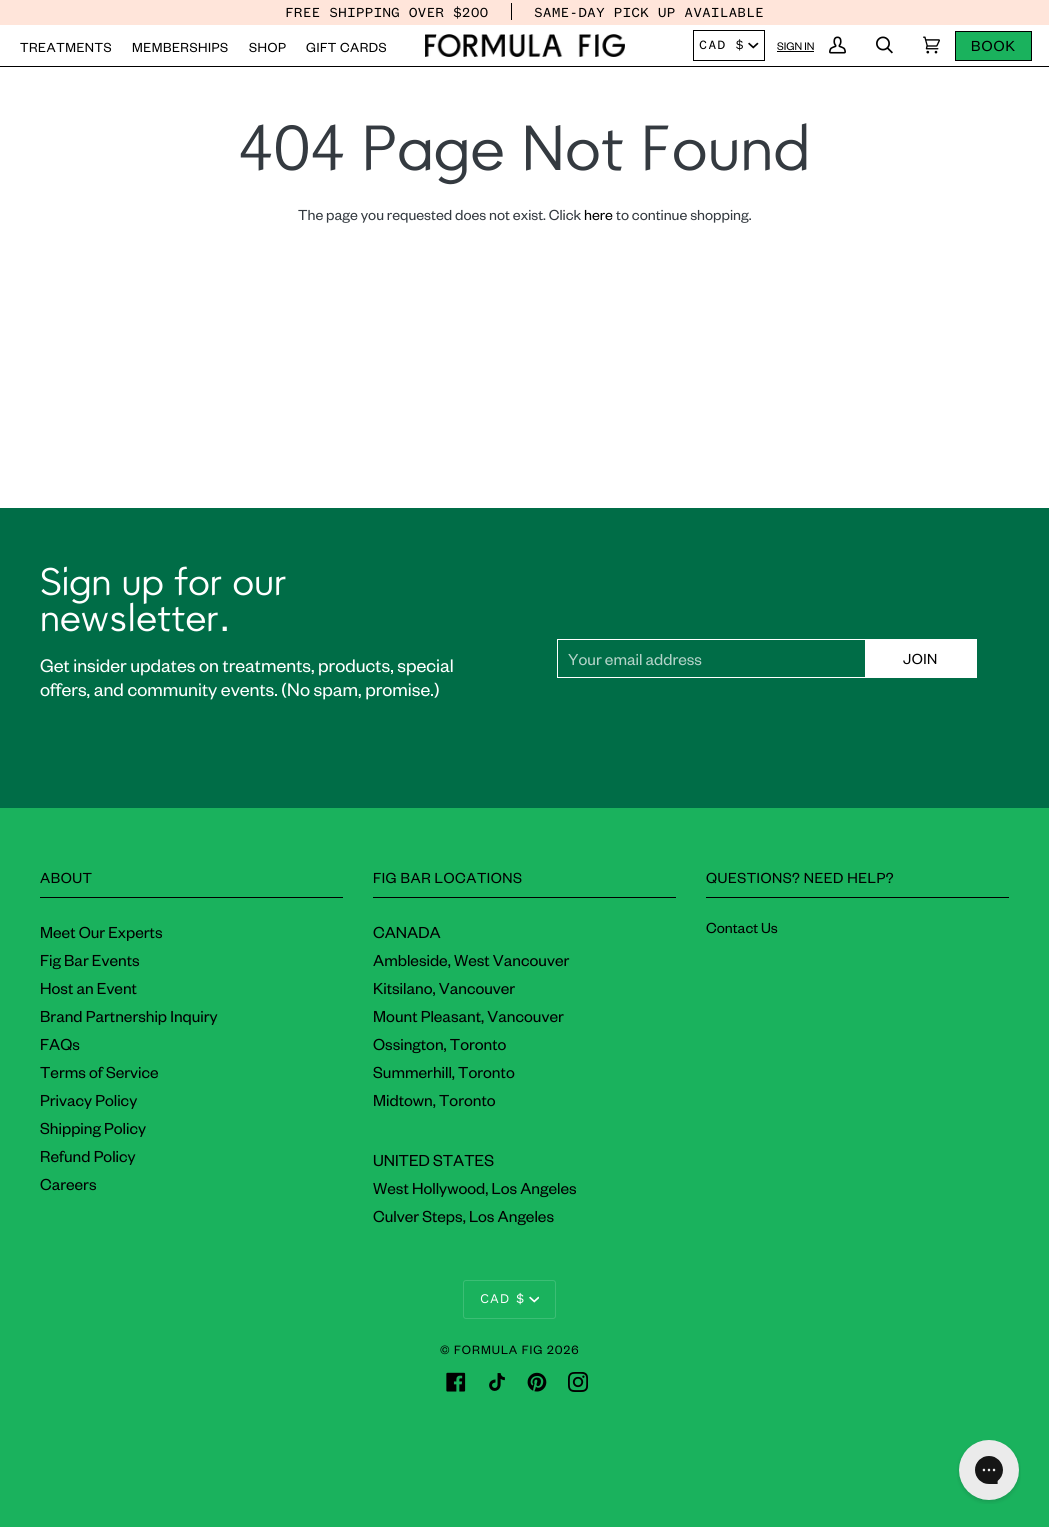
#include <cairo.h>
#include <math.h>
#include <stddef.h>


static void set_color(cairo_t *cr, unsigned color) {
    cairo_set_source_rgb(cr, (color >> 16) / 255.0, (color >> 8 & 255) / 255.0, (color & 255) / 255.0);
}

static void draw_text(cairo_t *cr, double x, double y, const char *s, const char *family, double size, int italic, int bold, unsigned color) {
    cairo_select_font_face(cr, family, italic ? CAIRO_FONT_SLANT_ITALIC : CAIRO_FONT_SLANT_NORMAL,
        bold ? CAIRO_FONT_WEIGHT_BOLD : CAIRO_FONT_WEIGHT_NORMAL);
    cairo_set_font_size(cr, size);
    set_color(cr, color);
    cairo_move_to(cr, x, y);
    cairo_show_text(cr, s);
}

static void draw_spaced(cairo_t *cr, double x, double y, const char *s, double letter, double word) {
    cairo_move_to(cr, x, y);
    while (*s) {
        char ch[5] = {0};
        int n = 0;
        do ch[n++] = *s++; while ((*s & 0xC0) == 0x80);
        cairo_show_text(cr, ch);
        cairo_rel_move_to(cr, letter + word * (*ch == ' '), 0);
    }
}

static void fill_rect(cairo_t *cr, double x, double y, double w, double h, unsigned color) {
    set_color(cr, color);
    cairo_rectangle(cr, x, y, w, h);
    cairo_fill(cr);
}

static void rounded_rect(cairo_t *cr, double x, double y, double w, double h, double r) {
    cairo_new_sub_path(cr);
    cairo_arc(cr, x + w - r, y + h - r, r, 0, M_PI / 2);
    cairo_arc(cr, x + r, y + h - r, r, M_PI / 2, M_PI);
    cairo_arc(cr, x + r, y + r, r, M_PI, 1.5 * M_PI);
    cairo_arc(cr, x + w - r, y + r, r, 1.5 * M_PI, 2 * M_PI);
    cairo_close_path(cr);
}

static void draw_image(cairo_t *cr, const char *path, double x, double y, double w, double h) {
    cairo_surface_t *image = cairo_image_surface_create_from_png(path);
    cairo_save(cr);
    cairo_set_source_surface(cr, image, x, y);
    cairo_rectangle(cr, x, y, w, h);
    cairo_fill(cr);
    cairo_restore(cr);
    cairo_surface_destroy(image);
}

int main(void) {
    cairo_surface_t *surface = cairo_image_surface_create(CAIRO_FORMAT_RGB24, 1049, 1527);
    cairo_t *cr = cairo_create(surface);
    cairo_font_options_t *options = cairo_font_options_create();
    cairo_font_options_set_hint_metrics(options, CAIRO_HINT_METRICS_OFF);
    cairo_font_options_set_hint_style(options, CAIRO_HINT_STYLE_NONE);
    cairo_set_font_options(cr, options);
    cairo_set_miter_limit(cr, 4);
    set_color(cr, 0xFFFFFF);
    cairo_paint(cr);
    fill_rect(cr, 0, 0, 1049, 25, 0xFFE5DA);
    draw_text(cr, 285, 17, "FREE SHIPPING OVER $200", "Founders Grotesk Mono", 14.4, 0, 0, 0x000000);
    fill_rect(cr, 511, 3, 1, 17, 0x000000);
    draw_text(cr, 534, 17, "SAME-DAY PICK UP AVAILABLE", "Founders Grotesk Mono", 14.4, 0, 0, 0x000000);
    fill_rect(cr, 0, 66, 1049, 1, 0x000000);
    cairo_select_font_face(cr, "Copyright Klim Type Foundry", CAIRO_FONT_SLANT_NORMAL, CAIRO_FONT_WEIGHT_NORMAL);
    draw_spaced(cr, 20, 52, "TREATMENTS", 0.5, 0);
    draw_spaced(cr, 132, 52, "MEMBERSHIPS", 0.5, 0);
    draw_spaced(cr, 249, 52, "SHOP", 0.5, 0);
    draw_spaced(cr, 306, 52, "GIFT CARDS", 0.5, 0);
    draw_image(cr, "assets/img1.png", 425, 34, 200, 23);
    cairo_rectangle(cr, 693.5, 30.5, 71, 30);
    cairo_set_line_width(cr, 1);
    cairo_stroke(cr);
    cairo_select_font_face(cr, "Founders Grotesk Mono", CAIRO_FONT_SLANT_NORMAL, CAIRO_FONT_WEIGHT_NORMAL);
    cairo_set_font_size(cr, 13.25);
    draw_spaced(cr, 699, 49, "CAD $", 1, 0);
    draw_image(cr, "assets/img2.png", 748, 42, 11, 7);
    draw_text(cr, 777, 50, "SIGN IN", "Copyright Klim Type Foundry", 12, 0, 0, 0x000000);
    fill_rect(cr, 777, 51, 37, 1, 0x000000);
    draw_image(cr, "assets/img3.png", 829, 36, 17, 18);
    draw_image(cr, "assets/img4.png", 876, 36, 17, 18);
    draw_image(cr, "assets/img5.png", 923, 36, 17, 18);
    set_color(cr, 0x1AB25D);
    cairo_rectangle(cr, 955.5, 31.5, 76, 29);
    cairo_fill_preserve(cr);
    set_color(cr, 0x000000);
    cairo_stroke(cr);
    cairo_set_font_size(cr, 16);
    draw_spaced(cr, 971, 51, "BOOK", 1, 0);
    draw_text(cr, 239, 170, "404 Page Not Found", "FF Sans", 59.25, 0, 0, 0x343A40);
    draw_text(cr, 298, 220, "The page you requested does not exist. Click", "Copyright Klim Type Foundry", 16, 0, 0, 0x343A40);
    draw_text(cr, 584, 220, "here", "Copyright Klim Type Foundry", 16, 0, 0, 0x000000);
    draw_text(cr, 616, 220, "to continue shopping.", "Copyright Klim Type Foundry", 16, 0, 0, 0x343A40);
    fill_rect(cr, 0, 508, 1049, 300, 0x006D47);
    draw_text(cr, 40, 595, "Sign up for our", "FF Sans", 36, 0, 0, 0xFFFFFF);
    draw_text(cr, 40, 631, "newsletter.", "FF Sans", 36, 0, 0, 0xFFFFFF);
    draw_text(cr, 40, 672, "Get insider updates on treatments, products, special", "Copyright Klim Type Foundry", 20, 0, 0, 0xFFFFFF);
    draw_text(cr, 40, 696, "offers, and community events. (No spam, promise.)", "Copyright Klim Type Foundry", 20, 0, 0, 0xFFFFFF);
    cairo_rectangle(cr, 557.5, 639.5, 419, 38);
    cairo_stroke(cr);
    draw_text(cr, 568, 665, "Your email address", "Copyright Klim Type Foundry", 17.5, 0, 0, 0xB3D3C8);
    fill_rect(cr, 865, 640, 111, 37, 0xFFFFFF);
    cairo_set_font_size(cr, 16);
    set_color(cr, 0x000000);
    draw_spaced(cr, 903, 664, "JOIN", 0.5, 0);
    fill_rect(cr, 0, 808, 1049, 719, 0x1AB25D);
    fill_rect(cr, 40, 897, 303, 1, 0x000000);
    draw_spaced(cr, 40, 883, "ABOUT", 0.5, 0);
    draw_text(cr, 40, 938, "Meet Our Experts", "Copyright Klim Type Foundry", 17.5, 0, 0, 0x000000);
    draw_text(cr, 40, 966, "Fig Bar Events", "Copyright Klim Type Foundry", 17.5, 0, 0, 0x000000);
    draw_text(cr, 40, 994, "Host an Event", "Copyright Klim Type Foundry", 17.5, 0, 0, 0x000000);
    draw_text(cr, 40, 1022, "Brand Partnership Inquiry", "Copyright Klim Type Foundry", 17.5, 0, 0, 0x000000);
    draw_text(cr, 40, 1050, "FAQs", "Copyright Klim Type Foundry", 17.5, 0, 0, 0x000000);
    draw_text(cr, 40, 1078, "Terms of Service", "Copyright Klim Type Foundry", 17.5, 0, 0, 0x000000);
    draw_text(cr, 40, 1106, "Privacy Policy", "Copyright Klim Type Foundry", 17.5, 0, 0, 0x000000);
    draw_text(cr, 40, 1134, "Shipping Policy", "Copyright Klim Type Foundry", 17.5, 0, 0, 0x000000);
    draw_text(cr, 40, 1162, "Refund Policy", "Copyright Klim Type Foundry", 17.5, 0, 0, 0x000000);
    draw_text(cr, 40, 1190, "Careers", "Copyright Klim Type Foundry", 17.5, 0, 0, 0x000000);
    fill_rect(cr, 373, 897, 303, 1, 0x000000);
    cairo_set_font_size(cr, 16);
    draw_spaced(cr, 373, 883, "FIG BAR LOCATIONS", 0.5, 0);
    draw_text(cr, 373, 938, "CANADA", "Copyright Klim Type Foundry", 17.5, 0, 0, 0x000000);
    draw_text(cr, 373, 966, "Ambleside, West Vancouver", "Copyright Klim Type Foundry", 17.5, 0, 0, 0x000000);
    draw_text(cr, 373, 994, "Kitsilano, Vancouver", "Copyright Klim Type Foundry", 17.5, 0, 0, 0x000000);
    draw_text(cr, 373, 1022, "Mount Pleasant, Vancouver", "Copyright Klim Type Foundry", 17.5, 0, 0, 0x000000);
    draw_text(cr, 373, 1050, "Ossington, Toronto", "Copyright Klim Type Foundry", 17.5, 0, 0, 0x000000);
    draw_text(cr, 373, 1078, "Summerhill, Toronto", "Copyright Klim Type Foundry", 17.5, 0, 0, 0x000000);
    draw_text(cr, 373, 1106, "Midtown, Toronto", "Copyright Klim Type Foundry", 17.5, 0, 0, 0x000000);
    draw_text(cr, 373, 1166, "UNITED STATES", "Copyright Klim Type Foundry", 17.5, 0, 0, 0x000000);
    draw_text(cr, 373, 1194, "West Hollywood, Los Angeles", "Copyright Klim Type Foundry", 17.5, 0, 0, 0x000000);
    draw_text(cr, 373, 1222, "Culver Steps, Los Angeles", "Copyright Klim Type Foundry", 17.5, 0, 0, 0x000000);
    fill_rect(cr, 706, 897, 303, 1, 0x000000);
    cairo_set_font_size(cr, 16);
    draw_spaced(cr, 706, 883, "QUESTIONS? NEED HELP?", 0.5, 0);
    draw_text(cr, 706, 933, "Contact Us", "Copyright Klim Type Foundry", 16, 0, 0, 0x000000);
    rounded_rect(cr, 463.5, 1280.5, 92, 38, 2.5);
    set_color(cr, 0x3CBE75);
    cairo_stroke(cr);
    cairo_select_font_face(cr, "Work Sans", CAIRO_FONT_SLANT_NORMAL, CAIRO_FONT_WEIGHT_NORMAL);
    cairo_set_font_size(cr, 13.25);
    set_color(cr, 0xFFFFFF);
    draw_spaced(cr, 480, 1303, "CAD $", 1, 0);
    draw_image(cr, "assets/img6.png", 529, 1296, 10, 7);
    cairo_select_font_face(cr, "Copyright Klim Type Foundry", CAIRO_FONT_SLANT_NORMAL, CAIRO_FONT_WEIGHT_NORMAL);
    set_color(cr, 0x000000);
    draw_spaced(cr, 440, 1354, "© FORMULA FIG", 1, 0);
    draw_spaced(cr, 547, 1354, "2026", 1, 0);
    draw_image(cr, "assets/img7.png", 446, 1372, 20, 20);
    draw_image(cr, "assets/img8.png", 489, 1373, 16, 18);
    draw_image(cr, "assets/img9.png", 527, 1372, 20, 20);
    draw_image(cr, "assets/img10.png", 568, 1372, 20, 20);
    draw_image(cr, "assets/img11.png", 957, 1440, 64, 64);
    cairo_surface_write_to_png(surface, "output.png");
    cairo_font_options_destroy(options);
    cairo_destroy(cr);
    cairo_surface_destroy(surface);
    return 0;
}
